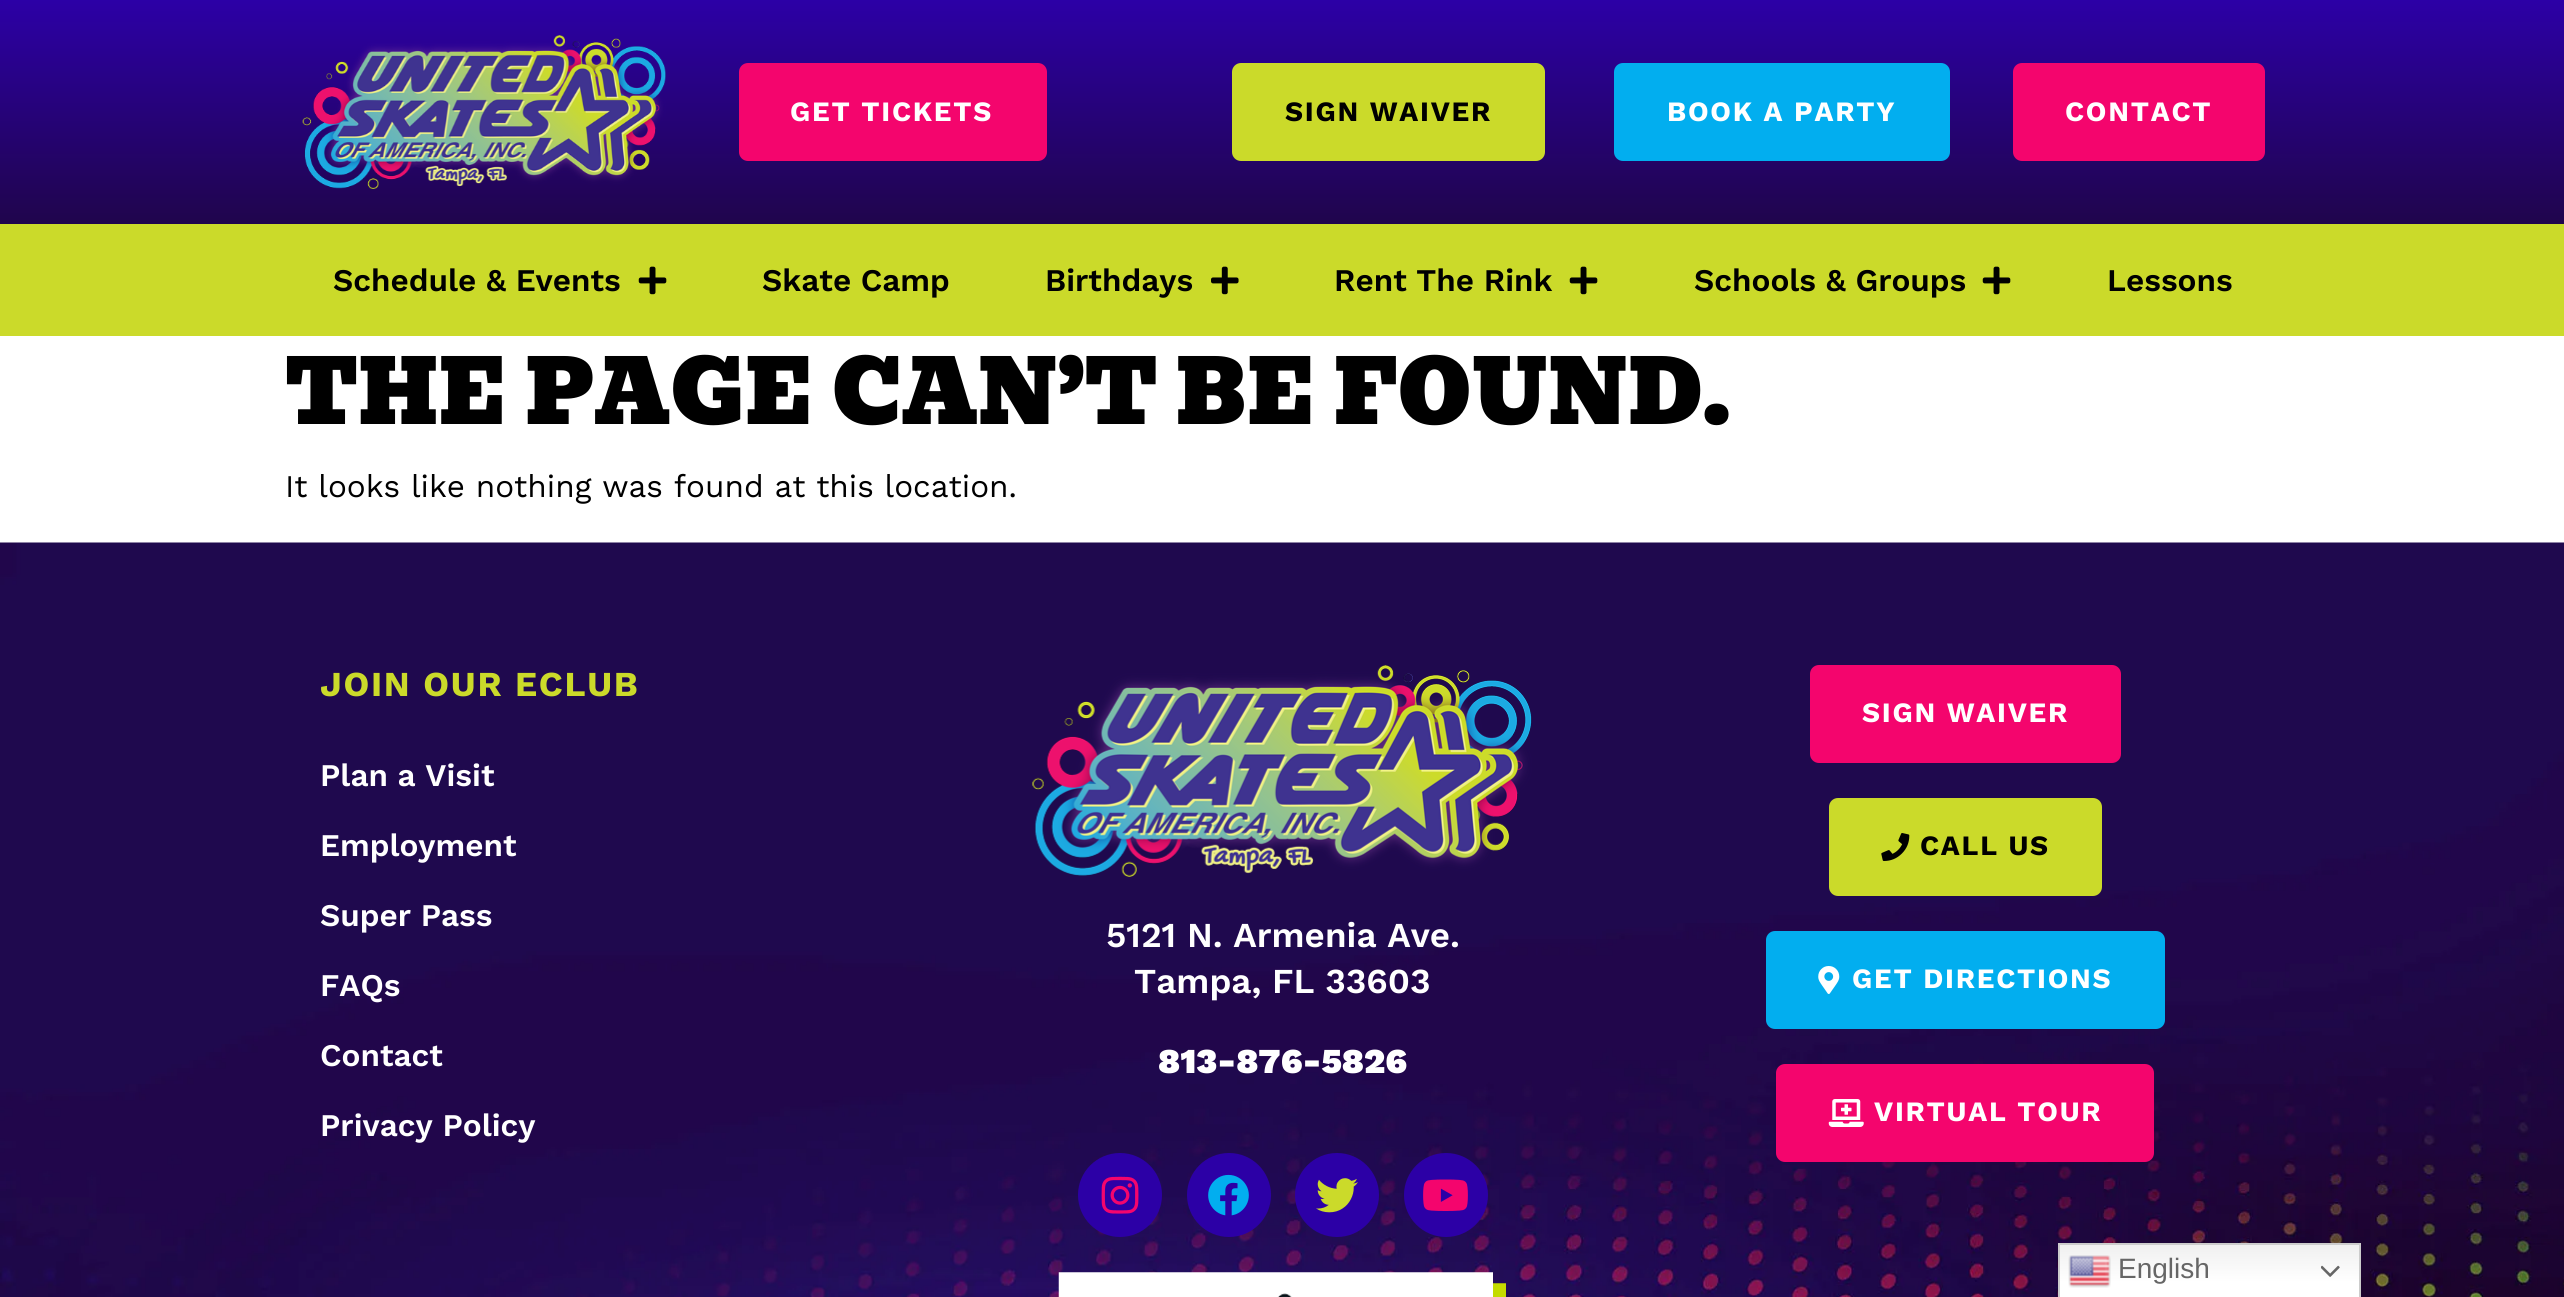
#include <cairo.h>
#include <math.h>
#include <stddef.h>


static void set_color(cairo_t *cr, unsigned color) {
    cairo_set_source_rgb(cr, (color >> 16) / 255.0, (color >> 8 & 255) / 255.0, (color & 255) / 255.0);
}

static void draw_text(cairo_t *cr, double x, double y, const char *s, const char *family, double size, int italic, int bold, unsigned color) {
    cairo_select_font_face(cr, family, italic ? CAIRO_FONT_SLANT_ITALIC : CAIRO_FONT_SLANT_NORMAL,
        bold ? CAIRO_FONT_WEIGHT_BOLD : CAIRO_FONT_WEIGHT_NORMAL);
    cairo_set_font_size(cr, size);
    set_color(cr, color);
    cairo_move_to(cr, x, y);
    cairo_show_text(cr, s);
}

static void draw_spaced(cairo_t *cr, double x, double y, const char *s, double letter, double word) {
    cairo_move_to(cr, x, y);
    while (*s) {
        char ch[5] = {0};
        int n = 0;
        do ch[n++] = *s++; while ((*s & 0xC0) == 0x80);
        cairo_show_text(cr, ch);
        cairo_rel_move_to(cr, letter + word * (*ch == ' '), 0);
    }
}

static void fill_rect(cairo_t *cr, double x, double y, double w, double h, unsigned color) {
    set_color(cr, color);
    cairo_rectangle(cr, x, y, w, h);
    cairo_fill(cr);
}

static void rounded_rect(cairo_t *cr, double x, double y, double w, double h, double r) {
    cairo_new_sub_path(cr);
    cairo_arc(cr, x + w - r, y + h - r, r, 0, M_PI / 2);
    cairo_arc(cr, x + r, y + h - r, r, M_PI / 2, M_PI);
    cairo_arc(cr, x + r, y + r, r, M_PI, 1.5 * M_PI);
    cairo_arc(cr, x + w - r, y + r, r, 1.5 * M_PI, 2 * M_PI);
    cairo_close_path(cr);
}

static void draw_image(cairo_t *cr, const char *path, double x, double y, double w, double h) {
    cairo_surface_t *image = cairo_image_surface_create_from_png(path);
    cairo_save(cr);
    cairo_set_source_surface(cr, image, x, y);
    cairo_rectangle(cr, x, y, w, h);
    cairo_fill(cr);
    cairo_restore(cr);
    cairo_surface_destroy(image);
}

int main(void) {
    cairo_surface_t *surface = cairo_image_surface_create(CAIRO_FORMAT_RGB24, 2564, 1297);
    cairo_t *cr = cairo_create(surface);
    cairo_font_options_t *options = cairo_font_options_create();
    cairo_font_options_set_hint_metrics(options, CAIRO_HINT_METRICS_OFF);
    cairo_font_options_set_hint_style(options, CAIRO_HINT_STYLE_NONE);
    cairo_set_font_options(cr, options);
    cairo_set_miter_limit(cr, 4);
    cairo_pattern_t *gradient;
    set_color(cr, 0xFFFFFF);
    cairo_paint(cr);
    gradient = cairo_pattern_create_linear(1283, 0, 1283, 224);
    cairo_pattern_add_color_stop_rgba(gradient, 0, 0.173, 0, 0.651, 1);
    cairo_pattern_add_color_stop_rgba(gradient, 1, 0.125, 0.02, 0.298, 1);
    cairo_set_source(cr, gradient);
    cairo_pattern_destroy(gradient);
    cairo_rectangle(cr, 0, 0, 2564, 224);
    cairo_fill(cr);
    draw_image(cr, "assets/img1.png", 302, 35, 364, 154);
    set_color(cr, 0xF4056D);
    rounded_rect(cr, 739, 63, 308, 98, 9);
    cairo_fill(cr);
    cairo_select_font_face(cr, "Work Sans", CAIRO_FONT_SLANT_NORMAL, CAIRO_FONT_WEIGHT_BOLD);
    cairo_set_font_size(cr, 28);
    set_color(cr, 0xFFFFFF);
    draw_spaced(cr, 790, 121, "GET TICKETS", 1.75, 0);
    set_color(cr, 0xCBDA2A);
    rounded_rect(cr, 1232, 63, 313, 98, 9);
    cairo_fill(cr);
    set_color(cr, 0x000000);
    draw_spaced(cr, 1285, 121, "SIGN WAIVER", 1.75, 0);
    set_color(cr, 0x02AEEF);
    rounded_rect(cr, 1614, 63, 336, 98, 9);
    cairo_fill(cr);
    set_color(cr, 0xFFFFFF);
    draw_spaced(cr, 1667, 121, "BOOK A PARTY", 1.75, 0);
    set_color(cr, 0xF4056D);
    rounded_rect(cr, 2013, 63, 252, 98, 9);
    cairo_fill(cr);
    set_color(cr, 0xFFFFFF);
    draw_spaced(cr, 2065, 121, "CONTACT", 1.75, 0);
    fill_rect(cr, 0, 224, 2564, 112, 0xCBDA2A);
    draw_text(cr, 333, 291, "Schedule & Events", "Work Sans SemiBold", 31.5, 0, 0, 0x000000);
    draw_image(cr, "assets/img2.png", 638, 266, 29, 29);
    draw_text(cr, 762, 291, "Skate Camp", "Work Sans SemiBold", 31.5, 0, 0, 0x000000);
    draw_text(cr, 1045, 291, "Birthdays", "Work Sans SemiBold", 31.5, 0, 0, 0x000000);
    draw_image(cr, "assets/img3.png", 1211, 266, 28, 29);
    draw_text(cr, 1334, 291, "Rent The Rink", "Work Sans SemiBold", 31.5, 0, 0, 0x000000);
    draw_image(cr, "assets/img2.png", 1569, 266, 29, 29);
    draw_text(cr, 1694, 291, "Schools & Groups", "Work Sans SemiBold", 31.5, 0, 0, 0x000000);
    draw_image(cr, "assets/img2.png", 1982, 266, 29, 29);
    draw_text(cr, 2107, 291, "Lessons", "Work Sans SemiBold", 31.5, 0, 0, 0x000000);
    draw_text(cr, 285, 424, "THE PAGE CAN’T BE FOUND.", "Bevan", 87.5, 0, 0, 0x000000);
    draw_text(cr, 285, 497, "It looks like nothing was found at this location.", "Work Sans", 31.5, 0, 0, 0x000000);
    draw_image(cr, "assets/img4.png", 0, 542, 2564, 755);
    cairo_select_font_face(cr, "Work Sans", CAIRO_FONT_SLANT_NORMAL, CAIRO_FONT_WEIGHT_BOLD);
    cairo_set_font_size(cr, 35);
    set_color(cr, 0xCBDA2A);
    draw_spaced(cr, 320, 696, "JOIN OUR ECLUB", 1.75, 0);
    draw_text(cr, 320, 786, "Plan a Visit", "Work Sans SemiBold", 31.5, 0, 0, 0xFFFFFF);
    draw_text(cr, 320, 856, "Employment", "Work Sans SemiBold", 31.5, 0, 0, 0xFFFFFF);
    draw_text(cr, 320, 926, "Super Pass", "Work Sans SemiBold", 31.5, 0, 0, 0xFFFFFF);
    draw_text(cr, 320, 996, "FAQs", "Work Sans SemiBold", 31.5, 0, 0, 0xFFFFFF);
    draw_text(cr, 320, 1066, "Contact", "Work Sans SemiBold", 31.5, 0, 0, 0xFFFFFF);
    draw_text(cr, 320, 1136, "Privacy Policy", "Work Sans SemiBold", 31.5, 0, 0, 0xFFFFFF);
    draw_image(cr, "assets/img5.png", 1032, 665, 500, 212);
    draw_text(cr, 1106, 947, "5121 N. Armenia Ave.", "Work Sans SemiBold", 35, 0, 0, 0xFFFFFF);
    draw_text(cr, 1134, 993, "Tampa, FL 33603", "Work Sans SemiBold", 35, 0, 0, 0xFFFFFF);
    draw_text(cr, 1158, 1073, "813-876-5826", "Work Sans Black", 35, 0, 0, 0xFFFFFF);
    set_color(cr, 0x2C00A6);
    cairo_new_path(cr);
    cairo_arc(cr, 1120, 1195, 42, 0, 2 * M_PI);
    cairo_fill(cr);
    draw_image(cr, "assets/img6.png", 1101, 1176, 38, 38);
    cairo_arc(cr, 1229, 1195, 42, 0, 2 * M_PI);
    cairo_fill(cr);
    draw_image(cr, "assets/img7.png", 1208, 1174, 41, 42);
    cairo_arc(cr, 1337, 1195, 42, 0, 2 * M_PI);
    cairo_fill(cr);
    draw_image(cr, "assets/img8.png", 1316, 1178, 42, 35);
    cairo_arc(cr, 1446, 1195, 42, 0, 2 * M_PI);
    cairo_fill(cr);
    draw_image(cr, "assets/img9.png", 1423, 1179, 45, 32);
    draw_image(cr, "assets/img10.png", 1058, 1272, 448, 25);
    set_color(cr, 0xF4056D);
    rounded_rect(cr, 1810, 665, 311, 98, 9);
    cairo_fill(cr);
    cairo_select_font_face(cr, "Work Sans", CAIRO_FONT_SLANT_NORMAL, CAIRO_FONT_WEIGHT_BOLD);
    cairo_set_font_size(cr, 28);
    set_color(cr, 0xFFFFFF);
    draw_spaced(cr, 1862, 722, "SIGN WAIVER", 1.75, 0);
    set_color(cr, 0xCBDA2A);
    rounded_rect(cr, 1829, 798, 273, 98, 9);
    cairo_fill(cr);
    draw_image(cr, "assets/img11.png", 1881, 833, 29, 28);
    set_color(cr, 0x000000);
    draw_spaced(cr, 1920, 855, "CALL US", 1.75, 0);
    set_color(cr, 0x02AEEF);
    rounded_rect(cr, 1766, 931, 399, 98, 9);
    cairo_fill(cr);
    draw_image(cr, "assets/img12.png", 1818, 966, 22, 28);
    set_color(cr, 0xFFFFFF);
    draw_spaced(cr, 1852, 988, "GET DIRECTIONS", 1.75, 0);
    set_color(cr, 0xF4056D);
    rounded_rect(cr, 1776, 1064, 378, 98, 9);
    cairo_fill(cr);
    draw_image(cr, "assets/img13.png", 1828, 1099, 36, 28);
    set_color(cr, 0xFFFFFF);
    draw_spaced(cr, 1874, 1121, "VIRTUAL TOUR", 1.75, 0);
    gradient = cairo_pattern_create_linear(2209, 1243, 2209, 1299);
    cairo_pattern_add_color_stop_rgba(gradient, 0, 0.937, 0.937, 0.937, 1);
    cairo_pattern_add_color_stop_rgba(gradient, 0.7, 1, 1, 1, 1);
    cairo_set_source(cr, gradient);
    cairo_pattern_destroy(gradient);
    cairo_rectangle(cr, 2060, 1245, 299, 52);
    cairo_fill(cr);
    cairo_rectangle(cr, 2059, 1244, 301, 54);
    set_color(cr, 0xCCCCCC);
    cairo_stroke(cr);
    draw_image(cr, "assets/img14.png", 2068, 1255, 43, 33);
    draw_text(cr, 2118, 1278, "English", "Liberation Sans", 28, 0, 0, 0x666666);
    draw_image(cr, "assets/img15.png", 2321, 1265, 19, 12);
    cairo_surface_write_to_png(surface, "output.png");
    cairo_font_options_destroy(options);
    cairo_destroy(cr);
    cairo_surface_destroy(surface);
    return 0;
}
